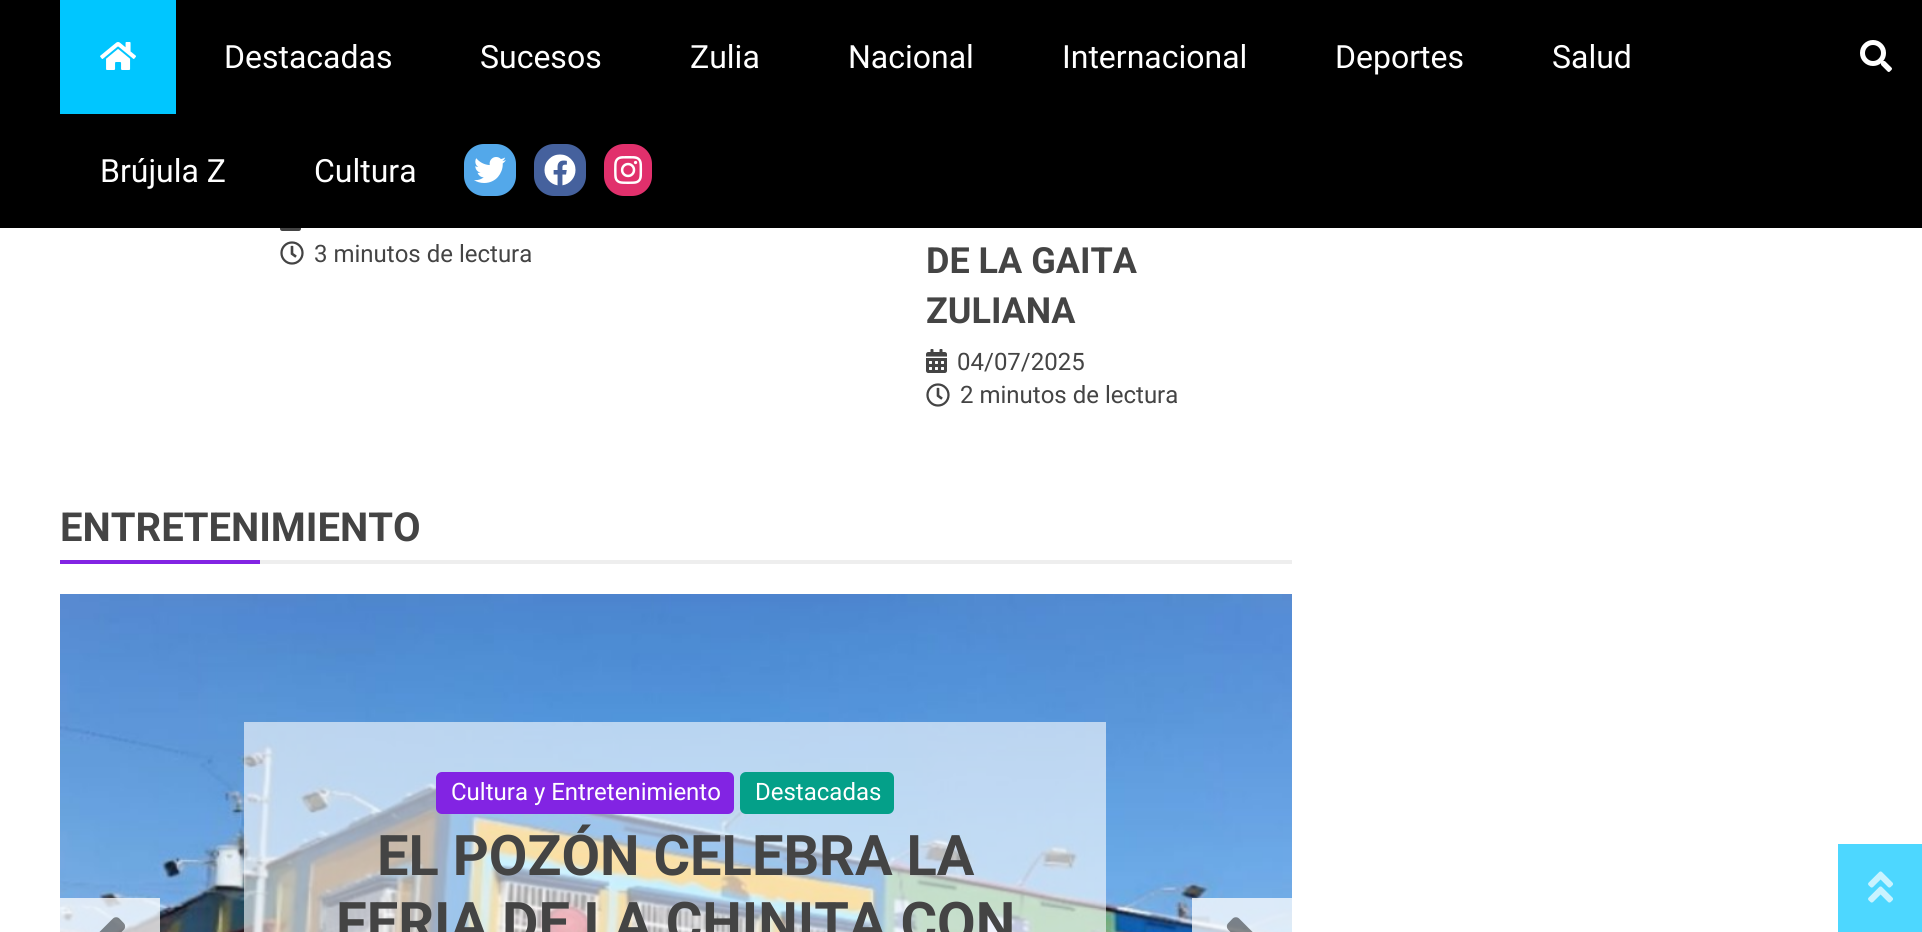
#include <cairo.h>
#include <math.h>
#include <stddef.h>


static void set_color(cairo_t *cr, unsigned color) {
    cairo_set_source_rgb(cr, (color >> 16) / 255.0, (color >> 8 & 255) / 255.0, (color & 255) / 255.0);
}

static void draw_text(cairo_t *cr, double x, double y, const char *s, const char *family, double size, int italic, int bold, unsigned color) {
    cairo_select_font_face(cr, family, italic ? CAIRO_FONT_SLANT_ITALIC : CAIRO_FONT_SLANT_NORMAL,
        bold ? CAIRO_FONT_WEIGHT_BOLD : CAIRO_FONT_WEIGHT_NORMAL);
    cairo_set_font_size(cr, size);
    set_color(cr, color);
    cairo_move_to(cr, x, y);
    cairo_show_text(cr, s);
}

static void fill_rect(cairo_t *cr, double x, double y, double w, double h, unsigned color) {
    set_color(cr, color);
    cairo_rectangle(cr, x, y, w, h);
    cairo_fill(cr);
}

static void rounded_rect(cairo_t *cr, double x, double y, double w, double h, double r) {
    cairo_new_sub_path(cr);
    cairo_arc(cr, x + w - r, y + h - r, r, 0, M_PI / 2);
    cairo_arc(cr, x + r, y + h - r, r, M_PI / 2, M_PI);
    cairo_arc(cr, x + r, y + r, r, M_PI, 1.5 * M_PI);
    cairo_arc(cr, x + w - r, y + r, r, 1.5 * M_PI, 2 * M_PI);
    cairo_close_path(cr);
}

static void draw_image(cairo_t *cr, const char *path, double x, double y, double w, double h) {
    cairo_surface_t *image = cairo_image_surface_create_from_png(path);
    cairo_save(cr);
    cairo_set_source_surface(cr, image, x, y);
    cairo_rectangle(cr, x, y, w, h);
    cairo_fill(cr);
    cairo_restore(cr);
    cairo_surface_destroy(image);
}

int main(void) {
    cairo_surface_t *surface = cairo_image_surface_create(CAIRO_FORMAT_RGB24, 1922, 932);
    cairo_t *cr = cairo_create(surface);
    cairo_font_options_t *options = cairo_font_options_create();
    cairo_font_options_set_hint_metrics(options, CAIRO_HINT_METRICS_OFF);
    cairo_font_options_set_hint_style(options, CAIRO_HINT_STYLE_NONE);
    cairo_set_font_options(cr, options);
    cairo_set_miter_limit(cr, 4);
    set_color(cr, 0xFFFFFF);
    cairo_paint(cr);
    fill_rect(cr, 0, 0, 1922, 228, 0x000000);
    fill_rect(cr, 60, 0, 116, 114, 0x00C6FF);
    draw_image(cr, "assets/img1.png", 100, 42, 36, 28);
    draw_text(cr, 224, 68, "Destacadas", "Roboto", 32, 0, 0, 0xFFFFFF);
    draw_text(cr, 480, 68, "Sucesos", "Roboto", 32, 0, 0, 0xFFFFFF);
    draw_text(cr, 690, 68, "Zulia", "Roboto", 32, 0, 0, 0xFFFFFF);
    draw_text(cr, 848, 68, "Nacional", "Roboto", 32, 0, 0, 0xFFFFFF);
    draw_text(cr, 1062, 68, "Internacional", "Roboto", 32, 0, 0, 0xFFFFFF);
    draw_text(cr, 1335, 68, "Deportes", "Roboto", 32, 0, 0, 0xFFFFFF);
    draw_text(cr, 1552, 68, "Salud", "Roboto", 32, 0, 0, 0xFFFFFF);
    draw_text(cr, 100, 182, "Brújula Z", "Roboto", 32, 0, 0, 0xFFFFFF);
    draw_text(cr, 314, 182, "Cultura", "Roboto", 32, 0, 0, 0xFFFFFF);
    set_color(cr, 0x53A8EA);
    rounded_rect(cr, 464, 144, 52, 52, 20);
    cairo_fill(cr);
    draw_image(cr, "assets/img2.png", 474, 157, 32, 26);
    set_color(cr, 0x45619D);
    rounded_rect(cr, 534, 144, 52, 52, 20);
    cairo_fill(cr);
    draw_image(cr, "assets/img3.png", 544, 154, 32, 32);
    set_color(cr, 0xE1306C);
    rounded_rect(cr, 604, 144, 48, 52, 20);
    cairo_fill(cr);
    draw_image(cr, "assets/img4.png", 614, 156, 29, 28);
    draw_image(cr, "assets/img5.png", 1860, 40, 32, 32);
    draw_image(cr, "assets/img6.png", 280, 228, 21, 3);
    draw_image(cr, "assets/img7.png", 280, 241, 24, 24);
    draw_text(cr, 314, 262, "3 minutos de lectura", "Roboto", 24, 0, 0, 0x444444);
    draw_text(cr, 926, 273, "DE LA GAITA", "Roboto", 36, 0, 1, 0x444444);
    draw_text(cr, 926, 323, "ZULIANA", "Roboto", 36, 0, 1, 0x444444);
    draw_image(cr, "assets/img8.png", 926, 349, 21, 24);
    draw_text(cr, 957, 370, "04/07/2025", "Roboto", 24, 0, 0, 0x444444);
    draw_image(cr, "assets/img7.png", 926, 383, 24, 24);
    draw_text(cr, 960, 403, "2 minutos de lectura", "Roboto", 24, 0, 0, 0x444444);
    fill_rect(cr, 260, 560, 1032, 4, 0xEEEEEE);
    draw_text(cr, 60, 541, "ENTRETENIMIENTO", "Roboto", 40, 0, 1, 0x444444);
    fill_rect(cr, 60, 560, 200, 4, 0x8224E3);
    draw_image(cr, "assets/img10.png", 60, 594, 1232, 338);
    cairo_set_source_rgba(cr, 1, 1, 1, 0.75);
    cairo_rectangle(cr, 60, 898, 100, 34);
    cairo_fill(cr);
    draw_image(cr, "assets/img9.png", 99, 917, 27, 15);
    cairo_set_source_rgba(cr, 1, 1, 1, 0.6);
    cairo_rectangle(cr, 244, 722, 862, 210);
    cairo_fill(cr);
    set_color(cr, 0x8224E3);
    rounded_rect(cr, 436, 772, 298, 42, 6);
    cairo_fill(cr);
    draw_text(cr, 451, 800, "Cultura y Entretenimiento", "Roboto", 24, 0, 0, 0xFFFFFF);
    set_color(cr, 0x04A089);
    rounded_rect(cr, 740, 772, 154, 42, 6);
    cairo_fill(cr);
    draw_text(cr, 755, 800, "Destacadas", "Roboto", 24, 0, 0, 0xFFFFFF);
    draw_text(cr, 377, 875, "EL POZÓN CELEBRA LA", "Roboto", 56, 0, 1, 0x444444);
    draw_text(cr, 336, 942, "FERIA DE LA CHINITA CON", "Roboto", 56, 0, 1, 0x444444);
    cairo_set_source_rgba(cr, 1, 1, 1, 0.75);
    cairo_rectangle(cr, 1192, 898, 100, 34);
    cairo_fill(cr);
    draw_image(cr, "assets/img11.png", 1226, 917, 27, 15);
    fill_rect(cr, 1838, 844, 84, 88, 0x4DD7FF);
    draw_image(cr, "assets/img12.png", 1868, 871, 25, 32);
    cairo_surface_write_to_png(surface, "output.png");
    cairo_font_options_destroy(options);
    cairo_destroy(cr);
    cairo_surface_destroy(surface);
    return 0;
}
